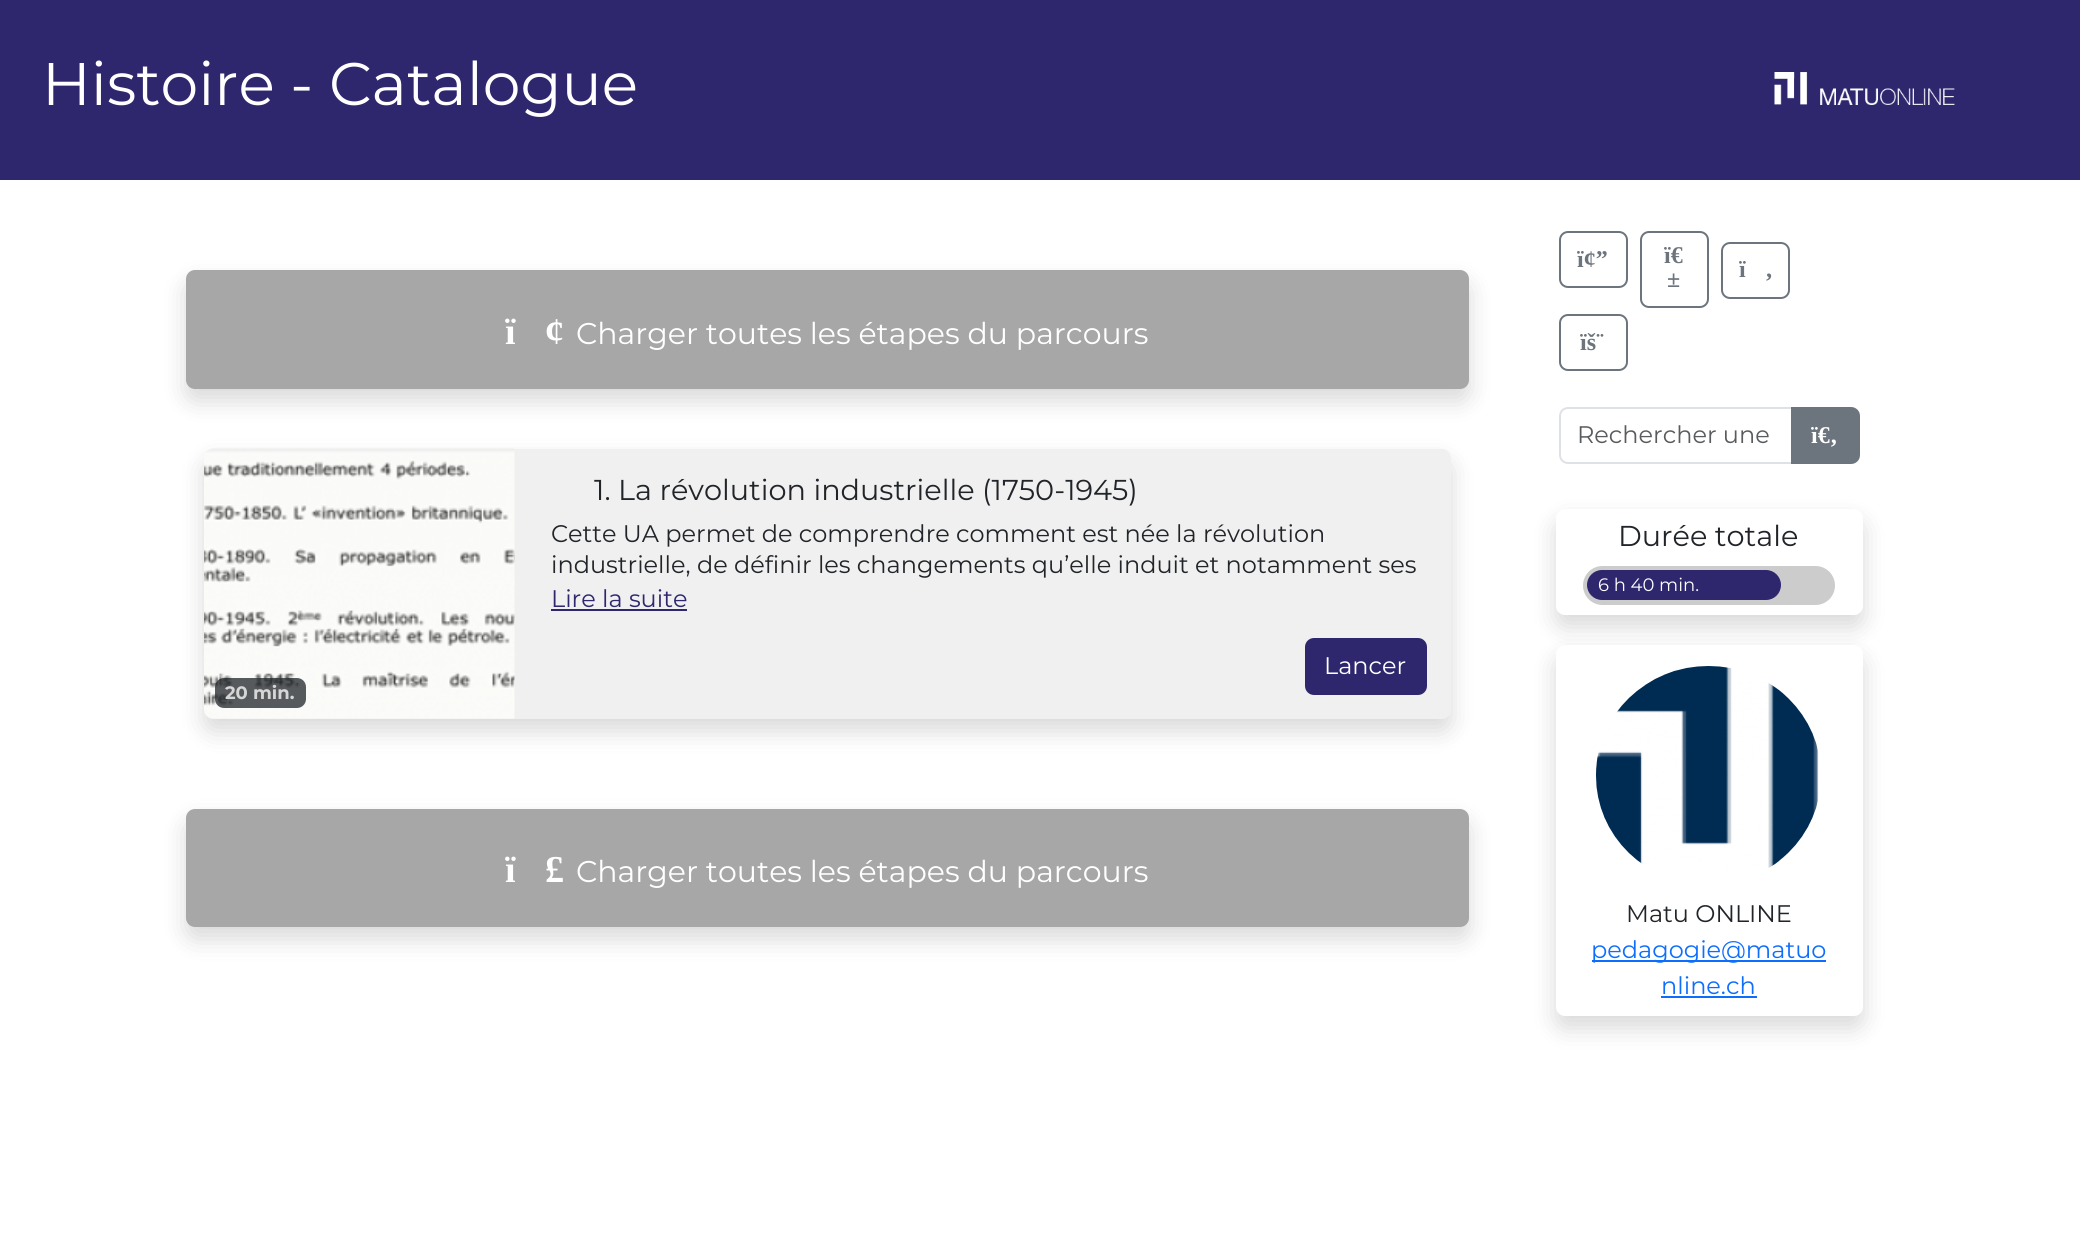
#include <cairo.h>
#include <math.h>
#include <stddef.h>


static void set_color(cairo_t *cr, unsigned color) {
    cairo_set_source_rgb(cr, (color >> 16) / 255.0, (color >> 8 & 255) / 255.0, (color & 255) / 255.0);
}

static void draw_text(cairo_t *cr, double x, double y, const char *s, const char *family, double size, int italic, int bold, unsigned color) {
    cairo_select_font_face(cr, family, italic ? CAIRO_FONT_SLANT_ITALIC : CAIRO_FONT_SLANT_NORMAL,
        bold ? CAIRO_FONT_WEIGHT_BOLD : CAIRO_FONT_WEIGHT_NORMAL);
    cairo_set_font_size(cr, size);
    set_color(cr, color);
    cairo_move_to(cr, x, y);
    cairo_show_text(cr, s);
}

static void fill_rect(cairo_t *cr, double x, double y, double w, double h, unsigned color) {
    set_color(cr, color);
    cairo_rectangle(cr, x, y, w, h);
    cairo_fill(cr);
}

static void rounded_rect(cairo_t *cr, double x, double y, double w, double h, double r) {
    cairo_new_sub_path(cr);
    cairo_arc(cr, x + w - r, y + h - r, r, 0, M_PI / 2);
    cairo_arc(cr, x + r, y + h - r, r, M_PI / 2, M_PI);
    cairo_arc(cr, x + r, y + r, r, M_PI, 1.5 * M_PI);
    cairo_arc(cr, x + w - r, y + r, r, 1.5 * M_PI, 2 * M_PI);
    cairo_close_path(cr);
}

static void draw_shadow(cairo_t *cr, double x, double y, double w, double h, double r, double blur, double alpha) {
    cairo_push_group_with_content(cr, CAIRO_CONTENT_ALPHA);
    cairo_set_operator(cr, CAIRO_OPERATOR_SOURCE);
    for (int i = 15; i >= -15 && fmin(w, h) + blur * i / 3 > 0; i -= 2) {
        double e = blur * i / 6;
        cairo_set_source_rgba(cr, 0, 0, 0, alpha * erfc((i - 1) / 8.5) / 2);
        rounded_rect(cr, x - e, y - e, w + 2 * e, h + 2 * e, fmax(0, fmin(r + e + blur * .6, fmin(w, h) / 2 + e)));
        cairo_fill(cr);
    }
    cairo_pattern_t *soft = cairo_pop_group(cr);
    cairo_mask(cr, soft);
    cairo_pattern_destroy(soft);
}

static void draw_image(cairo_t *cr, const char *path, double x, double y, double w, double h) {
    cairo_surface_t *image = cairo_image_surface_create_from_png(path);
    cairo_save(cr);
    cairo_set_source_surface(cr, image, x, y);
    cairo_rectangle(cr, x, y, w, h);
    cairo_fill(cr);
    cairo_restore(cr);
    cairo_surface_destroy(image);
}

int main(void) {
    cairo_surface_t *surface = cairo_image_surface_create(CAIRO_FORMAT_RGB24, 2080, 1233);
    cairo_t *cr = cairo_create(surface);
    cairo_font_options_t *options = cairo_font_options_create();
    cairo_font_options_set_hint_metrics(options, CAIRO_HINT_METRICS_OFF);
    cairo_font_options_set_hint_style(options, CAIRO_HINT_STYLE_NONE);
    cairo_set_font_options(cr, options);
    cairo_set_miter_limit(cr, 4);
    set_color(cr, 0xFFFFFF);
    cairo_paint(cr);
    fill_rect(cr, 0, 0, 2080, 180, 0x2E276E);
    draw_text(cr, 42, 105, "Histoire - Catalogue", "Montserrat Thin", 60, 0, 0, 0xFFFFFF);
    draw_image(cr, "assets/img1.png", 1774, 72, 181, 33);
    set_color(cr, 0x000000);
    draw_shadow(cr, 186, 282, 1283, 119, 9, 12, 0.15);
    set_color(cr, 0xA7A7A7);
    rounded_rect(cr, 186, 270, 1283, 119, 9);
    cairo_fill(cr);
    draw_text(cr, 505, 344, "ï", "Liberation Serif", 38, 0, 1, 0xFFFFFF);
    draw_text(cr, 545, 344, "¢", "Liberation Serif", 38, 0, 1, 0xFFFFFF);
    draw_text(cr, 576, 344, "Charger toutes les étapes du parcours", "Montserrat Thin", 30, 0, 0, 0xFFFFFF);
    set_color(cr, 0x000000);
    draw_shadow(cr, 204, 461, 1247, 270, 9, 12, 0.15);
    set_color(cr, 0xF0F0F0);
    rounded_rect(cr, 204, 449, 1247, 270, 9);
    cairo_fill(cr);
    draw_text(cr, 594, 500, "1. La révolution industrielle (1750-1945)", "Montserrat Thin", 28.75, 0, 0, 0x212529);
    draw_text(cr, 551, 542, "Cette UA permet de comprendre comment est née la révolution", "Montserrat Thin", 24, 0, 0, 0x212529);
    draw_text(cr, 551, 573, "industrielle, de définir les changements qu’elle induit et notamment ses", "Montserrat Thin", 24, 0, 0, 0x212529);
    draw_text(cr, 551, 607, "Lire la suite", "Montserrat Thin", 24, 0, 0, 0x2E276E);
    fill_rect(cr, 551, 609, 136, 2, 0x2E276E);
    rounded_rect(cr, 1306, 639, 120, 55, 8);
    cairo_fill_preserve(cr);
    cairo_stroke(cr);
    draw_text(cr, 1324, 674, "Lancer", "Montserrat Thin", 24, 0, 0, 0xFFFFFF);
    draw_image(cr, "assets/img2.png", 204, 448, 311, 271);
    cairo_set_source_rgba(cr, 0.129, 0.145, 0.161, 0.75);
    rounded_rect(cr, 215, 678, 91, 30, 9);
    cairo_fill(cr);
    draw_text(cr, 225, 699, "20 min.", "Montserrat", 18, 0, 1, 0xD5D6D6);
    set_color(cr, 0x000000);
    draw_shadow(cr, 186, 821, 1283, 118, 9, 12, 0.15);
    set_color(cr, 0xA7A7A7);
    rounded_rect(cr, 186, 809, 1283, 118, 9);
    cairo_fill(cr);
    draw_text(cr, 505, 882, "ï", "Liberation Serif", 38, 0, 1, 0xFFFFFF);
    draw_text(cr, 545, 882, "£", "Liberation Serif", 38, 0, 1, 0xFFFFFF);
    draw_text(cr, 576, 882, "Charger toutes les étapes du parcours", "Montserrat Thin", 30, 0, 0, 0xFFFFFF);
    rounded_rect(cr, 1560, 232, 67, 55, 8);
    set_color(cr, 0x6C757D);
    cairo_stroke(cr);
    draw_text(cr, 1577, 267, "ï¢”", "Liberation Serif", 24, 0, 1, 0x6C757D);
    rounded_rect(cr, 1641, 232, 67, 75, 8);
    cairo_stroke(cr);
    draw_text(cr, 1664, 263, "ï€", "Liberation Serif", 24, 0, 1, 0x6C757D);
    draw_text(cr, 1667, 287, "±", "Liberation Serif", 24, 0, 1, 0x6C757D);
    rounded_rect(cr, 1722, 243, 67, 55, 8);
    cairo_stroke(cr);
    draw_text(cr, 1739, 277, "ï", "Liberation Serif", 24, 0, 1, 0x6C757D);
    draw_text(cr, 1765, 277, "‚", "Liberation Serif", 24, 0, 1, 0x6C757D);
    rounded_rect(cr, 1560, 315, 67, 55, 8);
    cairo_stroke(cr);
    draw_text(cr, 1580, 350, "ïš¨", "Liberation Serif", 24, 0, 1, 0x6C757D);
    cairo_new_path(cr);
    cairo_move_to(cr, 1568, 408);
    cairo_line_to(cr, 1792, 408);
    cairo_line_to(cr, 1792, 463);
    cairo_line_to(cr, 1568, 463);
    cairo_curve_to(cr, 1563.5, 463, 1560, 459.5, 1560, 455);
    cairo_line_to(cr, 1560, 416);
    cairo_curve_to(cr, 1560, 411.5, 1563.5, 408, 1568, 408);
    cairo_close_path(cr);
    set_color(cr, 0xDEE2E6);
    cairo_stroke(cr);
    draw_text(cr, 1577, 443, "Rechercher une", "Montserrat Thin", 24, 0, 0, 0x595C5F);
    set_color(cr, 0x6C757D);
    cairo_new_path(cr);
    cairo_move_to(cr, 1792, 408);
    cairo_line_to(cr, 1851, 408);
    cairo_curve_to(cr, 1855.5, 408, 1859, 411.5, 1859, 416);
    cairo_line_to(cr, 1859, 455);
    cairo_curve_to(cr, 1859, 459.5, 1855.5, 463, 1851, 463);
    cairo_line_to(cr, 1792, 463);
    cairo_close_path(cr);
    cairo_fill_preserve(cr);
    cairo_stroke(cr);
    draw_text(cr, 1811, 443, "ï€‚", "Liberation Serif", 24, 0, 1, 0xFFFFFF);
    set_color(cr, 0x000000);
    draw_shadow(cr, 1556, 521, 307, 106, 9, 12, 0.15);
    set_color(cr, 0xFFFFFF);
    rounded_rect(cr, 1556, 509, 307, 106, 9);
    cairo_fill(cr);
    draw_text(cr, 1618, 546, "Durée totale", "Montserrat Thin", 28.75, 0, 0, 0x212529);
    set_color(cr, 0xCCCCCC);
    rounded_rect(cr, 1583, 566, 252, 39, 19.5);
    cairo_fill(cr);
    set_color(cr, 0x2E276E);
    rounded_rect(cr, 1587, 570, 194, 30, 15);
    cairo_fill(cr);
    draw_text(cr, 1598, 591, "6 h 40 min.", "Montserrat Thin", 18, 0, 0, 0xFFFFFF);
    set_color(cr, 0x000000);
    draw_shadow(cr, 1556, 657, 307, 371, 9, 12, 0.15);
    set_color(cr, 0xFFFFFF);
    rounded_rect(cr, 1556, 645, 307, 371, 9);
    cairo_fill(cr);
    draw_image(cr, "assets/img3.png", 1596, 666, 223, 202);
    draw_text(cr, 1626, 922, "Matu ONLINE", "Montserrat Thin", 24, 0, 0, 0x212529);
    fill_rect(cr, 1592, 960, 234, 2, 0x0D6EFD);
    draw_text(cr, 1591, 958, "pedagogie@matuo", "Montserrat Thin", 24, 0, 0, 0x0D6EFD);
    draw_text(cr, 1661, 994, "nline.ch", "Montserrat Thin", 24, 0, 0, 0x0D6EFD);
    fill_rect(cr, 1661, 996, 96, 2, 0x0D6EFD);
    cairo_surface_write_to_png(surface, "output.png");
    cairo_font_options_destroy(options);
    cairo_destroy(cr);
    cairo_surface_destroy(surface);
    return 0;
}
